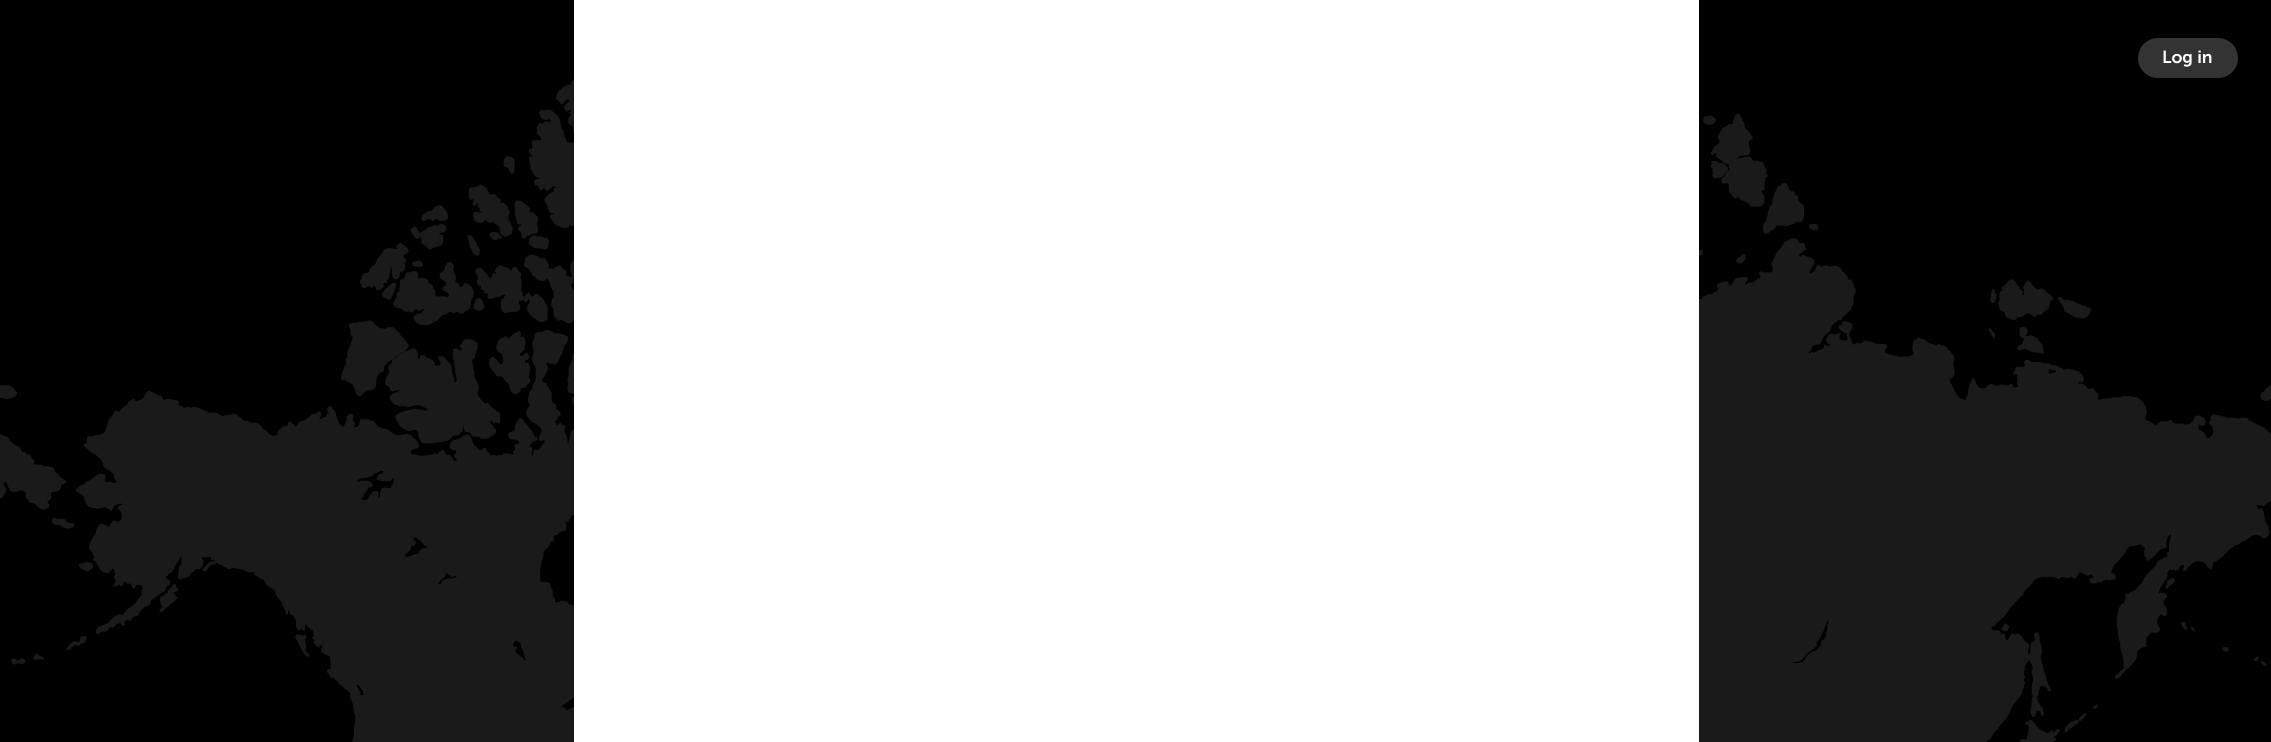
#include <cairo.h>
#include <math.h>
#include <stddef.h>


static void set_color(cairo_t *cr, unsigned color) {
    cairo_set_source_rgb(cr, (color >> 16) / 255.0, (color >> 8 & 255) / 255.0, (color & 255) / 255.0);
}

static void draw_text(cairo_t *cr, double x, double y, const char *s, const char *family, double size, int italic, int bold, unsigned color) {
    cairo_select_font_face(cr, family, italic ? CAIRO_FONT_SLANT_ITALIC : CAIRO_FONT_SLANT_NORMAL,
        bold ? CAIRO_FONT_WEIGHT_BOLD : CAIRO_FONT_WEIGHT_NORMAL);
    cairo_set_font_size(cr, size);
    set_color(cr, color);
    cairo_move_to(cr, x, y);
    cairo_show_text(cr, s);
}

static void fill_rect(cairo_t *cr, double x, double y, double w, double h, unsigned color) {
    set_color(cr, color);
    cairo_rectangle(cr, x, y, w, h);
    cairo_fill(cr);
}

static void rounded_rect(cairo_t *cr, double x, double y, double w, double h, double r) {
    cairo_new_sub_path(cr);
    cairo_arc(cr, x + w - r, y + h - r, r, 0, M_PI / 2);
    cairo_arc(cr, x + r, y + h - r, r, M_PI / 2, M_PI);
    cairo_arc(cr, x + r, y + r, r, M_PI, 1.5 * M_PI);
    cairo_arc(cr, x + w - r, y + r, r, 1.5 * M_PI, 2 * M_PI);
    cairo_close_path(cr);
}

static void draw_image(cairo_t *cr, const char *path, double x, double y, double w, double h) {
    cairo_surface_t *image = cairo_image_surface_create_from_png(path);
    cairo_save(cr);
    cairo_set_source_surface(cr, image, x, y);
    cairo_rectangle(cr, x, y, w, h);
    cairo_fill(cr);
    cairo_restore(cr);
    cairo_surface_destroy(image);
}

int main(void) {
    cairo_surface_t *surface = cairo_image_surface_create(CAIRO_FORMAT_RGB24, 2271, 742);
    cairo_t *cr = cairo_create(surface);
    cairo_font_options_t *options = cairo_font_options_create();
    cairo_font_options_set_hint_metrics(options, CAIRO_HINT_METRICS_OFF);
    cairo_font_options_set_hint_style(options, CAIRO_HINT_STYLE_NONE);
    cairo_set_font_options(cr, options);
    cairo_set_miter_limit(cr, 4);
    set_color(cr, 0x000000);
    cairo_paint(cr);
    draw_image(cr, "assets/img1.png", 0, 79, 2271, 663);
    fill_rect(cr, 574, 0, 1125, 742, 0xFFFFFF);
    set_color(cr, 0x333333);
    rounded_rect(cr, 2138, 38, 100, 40, 20);
    cairo_fill(cr);
    draw_text(cr, 2162, 63, "Log in", "Museo Sans SemiBold", 17.5, 0, 0, 0xFFFFFF);
    cairo_surface_write_to_png(surface, "output.png");
    cairo_font_options_destroy(options);
    cairo_destroy(cr);
    cairo_surface_destroy(surface);
    return 0;
}
